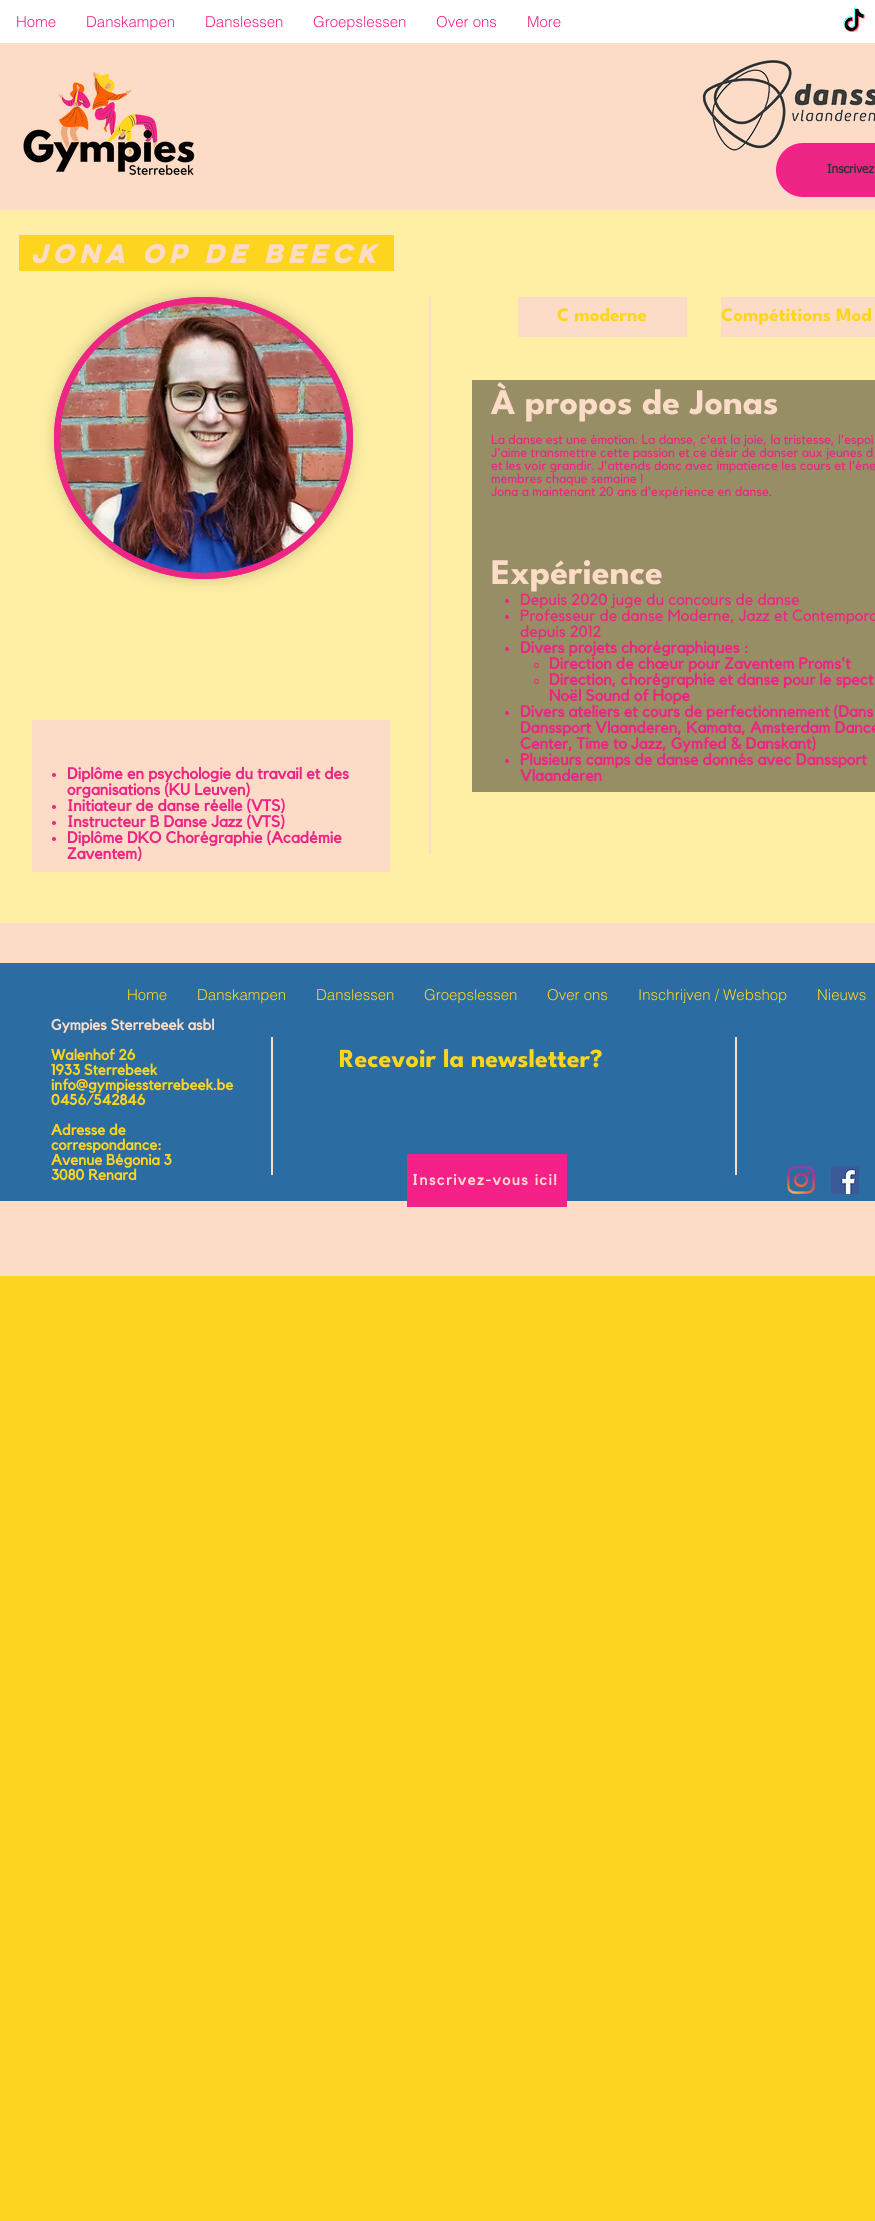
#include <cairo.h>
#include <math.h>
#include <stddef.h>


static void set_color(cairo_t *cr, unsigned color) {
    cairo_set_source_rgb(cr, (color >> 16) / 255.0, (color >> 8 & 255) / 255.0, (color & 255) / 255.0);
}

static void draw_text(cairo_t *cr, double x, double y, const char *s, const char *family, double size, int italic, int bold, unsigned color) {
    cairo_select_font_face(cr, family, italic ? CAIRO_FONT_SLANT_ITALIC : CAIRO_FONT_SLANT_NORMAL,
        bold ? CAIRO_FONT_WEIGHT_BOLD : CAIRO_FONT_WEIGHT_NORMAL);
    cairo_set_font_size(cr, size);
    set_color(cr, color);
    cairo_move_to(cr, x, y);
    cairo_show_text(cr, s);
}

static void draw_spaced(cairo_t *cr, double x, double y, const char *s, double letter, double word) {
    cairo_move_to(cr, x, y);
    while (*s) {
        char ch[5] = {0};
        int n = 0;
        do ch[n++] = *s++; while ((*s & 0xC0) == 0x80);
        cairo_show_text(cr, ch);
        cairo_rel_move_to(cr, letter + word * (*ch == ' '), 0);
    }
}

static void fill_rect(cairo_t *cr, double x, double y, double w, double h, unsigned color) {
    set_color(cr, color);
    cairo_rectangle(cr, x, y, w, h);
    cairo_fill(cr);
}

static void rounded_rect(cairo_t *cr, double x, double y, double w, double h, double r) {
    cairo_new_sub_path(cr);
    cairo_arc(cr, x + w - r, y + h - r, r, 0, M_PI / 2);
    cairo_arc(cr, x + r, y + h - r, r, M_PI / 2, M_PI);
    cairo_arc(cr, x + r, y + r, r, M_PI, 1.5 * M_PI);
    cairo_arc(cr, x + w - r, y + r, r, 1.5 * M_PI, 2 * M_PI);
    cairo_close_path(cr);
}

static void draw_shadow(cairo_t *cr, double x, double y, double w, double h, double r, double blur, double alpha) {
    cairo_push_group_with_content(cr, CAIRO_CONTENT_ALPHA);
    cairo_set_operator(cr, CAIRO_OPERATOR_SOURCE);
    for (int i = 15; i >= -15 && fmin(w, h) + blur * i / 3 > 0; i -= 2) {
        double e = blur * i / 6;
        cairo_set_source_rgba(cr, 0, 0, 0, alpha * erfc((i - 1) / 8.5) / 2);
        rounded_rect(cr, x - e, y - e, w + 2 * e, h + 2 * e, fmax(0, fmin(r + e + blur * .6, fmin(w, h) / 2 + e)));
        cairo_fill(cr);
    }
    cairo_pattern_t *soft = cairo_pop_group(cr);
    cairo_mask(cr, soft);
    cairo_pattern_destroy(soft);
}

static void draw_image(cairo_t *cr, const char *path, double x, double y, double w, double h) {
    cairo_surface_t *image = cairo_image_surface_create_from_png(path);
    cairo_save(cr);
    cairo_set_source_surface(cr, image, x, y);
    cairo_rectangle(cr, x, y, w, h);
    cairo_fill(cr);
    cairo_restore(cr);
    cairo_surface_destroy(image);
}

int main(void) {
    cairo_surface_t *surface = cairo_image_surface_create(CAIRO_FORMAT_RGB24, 875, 2221);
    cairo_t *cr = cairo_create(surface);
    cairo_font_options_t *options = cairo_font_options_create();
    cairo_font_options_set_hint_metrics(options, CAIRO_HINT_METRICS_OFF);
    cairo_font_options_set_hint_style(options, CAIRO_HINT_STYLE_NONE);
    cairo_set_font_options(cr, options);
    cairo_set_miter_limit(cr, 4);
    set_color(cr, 0xFDD51F);
    cairo_paint(cr);
    fill_rect(cr, 0, 0, 875, 43, 0xFFFFFF);
    draw_text(cr, 16, 27, "Home", "helvetica Light", 15, 0, 0, 0xED2584);
    draw_text(cr, 86, 27, "Danskampen", "helvetica Light", 15, 0, 0, 0xED2584);
    draw_text(cr, 205, 27, "Danslessen", "helvetica Light", 15, 0, 0, 0xED2584);
    draw_text(cr, 313, 27, "Groepslessen", "helvetica Light", 15, 0, 0, 0xED2584);
    draw_text(cr, 436, 27, "Over ons", "helvetica Light", 15, 0, 0, 0xED2584);
    draw_text(cr, 527, 27, "More", "helvetica Light", 15, 0, 0, 0xED2584);
    draw_image(cr, "assets/img1.png", 843, 8, 22, 24);
    fill_rect(cr, 0, 43, 875, 167, 0xFDDCC7);
    draw_image(cr, "assets/img2.png", 23, 71, 172, 105);
    set_color(cr, 0xED2584);
    rounded_rect(cr, 778.5, 145.5, 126, 49, 24.5);
    cairo_fill_preserve(cr);
    set_color(cr, 0xF62188);
    cairo_set_line_width(cr, 5);
    cairo_stroke(cr);
    draw_image(cr, "assets/img3.png", 702, 59, 173, 92);
    draw_text(cr, 827, 173, "Inscrivez", "tahoma", 12, 0, 1, 0x323232);
    fill_rect(cr, 0, 210, 875, 713, 0xFFEFA5);
    fill_rect(cr, 19, 235, 375, 36, 0xFDD51F);
    draw_text(cr, 31, 263, "Jona Op de beeck", "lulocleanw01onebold", 24, 1, 1, 0xFDDCC7);
    set_color(cr, 0x000000);
    draw_shadow(cr, 54, 297, 299, 282, 141, 7, 0.2);
    set_color(cr, 0xED2584);
    cairo_new_path(cr);
    cairo_move_to(cr, 203.5, 297);
    cairo_curve_to(cr, 286, 297, 353, 360, 353, 438);
    cairo_curve_to(cr, 353, 516, 286, 579, 203.5, 579);
    cairo_curve_to(cr, 121, 579, 54, 516, 54, 438);
    cairo_curve_to(cr, 54, 360, 121, 297, 203.5, 297);
    cairo_close_path(cr);
    cairo_fill(cr);
    cairo_new_path(cr);
    cairo_move_to(cr, 203.5, 300);
    cairo_curve_to(cr, 284.5, 300, 350, 362, 350, 438);
    cairo_curve_to(cr, 350, 514, 284.5, 576, 203.5, 576);
    cairo_curve_to(cr, 122.5, 576, 57, 514, 57, 438);
    cairo_curve_to(cr, 57, 362, 122.5, 300, 203.5, 300);
    cairo_close_path(cr);
    cairo_set_line_width(cr, 6);
    cairo_stroke(cr);
    draw_image(cr, "assets/img4.png", 60, 303, 287, 270);
    fill_rect(cr, 429, 297, 2, 557, 0xFDDCC7);
    fill_rect(cr, 518, 297, 169, 40, 0xFDDCC7);
    draw_text(cr, 557, 321, "C moderne", "League Spartan", 19, 0, 1, 0xFDD51F);
    fill_rect(cr, 721, 297, 154, 40, 0xFDDCC7);
    draw_text(cr, 721, 321, "Compétitions Mod", "League Spartan", 19, 0, 1, 0xFDD51F);
    fill_rect(cr, 472, 380, 403, 412, 0x978E66);
    draw_text(cr, 491, 414, "À propos de Jonas", "League Spartan", 36, 0, 1, 0xFDDCC7);
    draw_text(cr, 491, 444, "La danse est une émotion. La danse, c'est la joie, la tristesse, l'espoi", "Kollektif", 13, 0, 0, 0xED2584);
    draw_text(cr, 491, 457, "J'aime transmettre cette passion et ce désir de danser aux jeunes d", "Kollektif", 13, 0, 0, 0xED2584);
    draw_text(cr, 491, 470, "et les voir grandir. J'attends donc avec impatience les cours et l'éne", "Kollektif", 13, 0, 0, 0xED2584);
    draw_text(cr, 491, 483, "membres chaque semaine !", "Kollektif", 13, 0, 0, 0xED2584);
    draw_text(cr, 491, 496, "Jona a maintenant 20 ans d'expérience en danse.", "Kollektif", 13, 0, 0, 0xED2584);
    draw_text(cr, 491, 584, "Expérience", "League Spartan", 36, 0, 1, 0xFDDCC7);
    set_color(cr, 0xED2584);
    cairo_new_path(cr);
    cairo_arc(cr, 507, 601, 2, 0, 2 * M_PI);
    cairo_fill(cr);
    draw_text(cr, 520, 605, "Depuis 2020 juge du concours de danse", "Kollektif", 16, 0, 0, 0xED2584);
    cairo_new_path(cr);
    cairo_arc(cr, 507, 617, 2, 0, 2 * M_PI);
    cairo_fill(cr);
    draw_text(cr, 520, 621, "Professeur de danse Moderne, Jazz et Contempora", "Kollektif", 16, 0, 0, 0xED2584);
    draw_text(cr, 520, 637, "depuis 2012", "Kollektif", 16, 0, 0, 0xED2584);
    cairo_new_path(cr);
    cairo_arc(cr, 507, 649, 2, 0, 2 * M_PI);
    cairo_fill(cr);
    draw_text(cr, 520, 653, "Divers projets chorégraphiques :", "Kollektif", 16, 0, 1, 0xED2584);
    cairo_new_path(cr);
    cairo_arc(cr, 536.5, 665.5, 2, 0, 2 * M_PI);
    cairo_set_line_width(cr, 1);
    cairo_stroke(cr);
    draw_text(cr, 549, 669, "Direction de chœur pour Zaventem Proms't", "Kollektif", 16, 0, 1, 0xED2584);
    cairo_new_path(cr);
    cairo_arc(cr, 536.5, 681.5, 2, 0, 2 * M_PI);
    cairo_stroke(cr);
    draw_text(cr, 549, 685, "Direction, chorégraphie et danse pour le spect", "Kollektif", 16, 0, 1, 0xED2584);
    draw_text(cr, 549, 701, "Noël Sound of Hope", "Kollektif", 16, 0, 1, 0xED2584);
    cairo_new_path(cr);
    cairo_arc(cr, 507, 713, 2, 0, 2 * M_PI);
    cairo_fill(cr);
    draw_text(cr, 520, 717, "Divers ateliers et cours de perfectionnement (Dans", "Kollektif", 16, 0, 1, 0xED2584);
    draw_text(cr, 520, 733, "Danssport Vlaanderen, Kamata, Amsterdam Dance", "Kollektif", 16, 0, 1, 0xED2584);
    draw_text(cr, 520, 749, "Center, Time to Jazz, Gymfed & Danskant)", "Kollektif", 16, 0, 1, 0xED2584);
    cairo_new_path(cr);
    cairo_arc(cr, 507, 761, 2, 0, 2 * M_PI);
    cairo_fill(cr);
    draw_text(cr, 520, 765, "Plusieurs camps de danse donnés avec Danssport", "Kollektif", 16, 0, 1, 0xED2584);
    draw_text(cr, 520, 781, "Vlaanderen", "Kollektif", 16, 0, 1, 0xED2584);
    fill_rect(cr, 32, 720, 358, 152, 0xFDDCC7);
    set_color(cr, 0xED2584);
    cairo_new_path(cr);
    cairo_arc(cr, 54, 775, 2, 0, 2 * M_PI);
    cairo_fill(cr);
    draw_text(cr, 67, 779, "Diplôme en psychologie du travail et des", "Kollektif", 16, 0, 1, 0xED2584);
    draw_text(cr, 67, 795, "organisations (KU Leuven)", "Kollektif", 16, 0, 1, 0xED2584);
    cairo_new_path(cr);
    cairo_arc(cr, 54, 807, 2, 0, 2 * M_PI);
    cairo_fill(cr);
    draw_text(cr, 67, 811, "Initiateur de danse réelle (VTS)", "Kollektif", 16, 0, 1, 0xED2584);
    cairo_new_path(cr);
    cairo_arc(cr, 54, 823, 2, 0, 2 * M_PI);
    cairo_fill(cr);
    draw_text(cr, 67, 827, "Instructeur B Danse Jazz (VTS)", "Kollektif", 16, 0, 1, 0xED2584);
    cairo_new_path(cr);
    cairo_arc(cr, 54, 839, 2, 0, 2 * M_PI);
    cairo_fill(cr);
    draw_text(cr, 67, 843, "Diplôme DKO Chorégraphie (Académie", "Kollektif", 16, 0, 1, 0xED2584);
    draw_text(cr, 67, 859, "Zaventem)", "Kollektif", 16, 0, 1, 0xED2584);
    fill_rect(cr, 0, 923, 875, 353, 0xFDDCC7);
    fill_rect(cr, 0, 963, 875, 238, 0x2B6CA3);
    draw_text(cr, 127, 1000, "Home", "helvetica Light", 15, 0, 0, 0xFDD51F);
    draw_text(cr, 197, 1000, "Danskampen", "helvetica Light", 15, 0, 0, 0xFDD51F);
    draw_text(cr, 316, 1000, "Danslessen", "helvetica Light", 15, 0, 0, 0xFDD51F);
    draw_text(cr, 424, 1000, "Groepslessen", "helvetica Light", 15, 0, 0, 0xFDD51F);
    draw_text(cr, 547, 1000, "Over ons", "helvetica Light", 15, 0, 0, 0xFDD51F);
    draw_text(cr, 638, 1000, "Inschrijven / Webshop", "helvetica Light", 15, 0, 0, 0xFDD51F);
    draw_text(cr, 817, 1000, "Nieuws", "helvetica Light", 15, 0, 0, 0xFDD51F);
    draw_text(cr, 51, 1030, "Gympies Sterrebeek asbl", "Kollektif", 15, 0, 1, 0xFDDCC7);
    draw_text(cr, 51, 1060, "Walenhof 26", "Kollektif", 15, 0, 1, 0xFDD51F);
    draw_text(cr, 51, 1075, "1933 Sterrebeek", "Kollektif", 15, 0, 1, 0xFDD51F);
    draw_text(cr, 51, 1090, "info@gympiessterrebeek.be", "Kollektif", 15, 0, 1, 0xFDD51F);
    draw_text(cr, 51, 1105, "0456/542846", "Kollektif", 15, 0, 1, 0xFDD51F);
    draw_text(cr, 51, 1135, "Adresse de", "Kollektif", 15, 0, 1, 0xFDD51F);
    draw_text(cr, 51, 1150, "correspondance:", "Kollektif", 15, 0, 1, 0xFDD51F);
    draw_text(cr, 51, 1165, "Avenue Bégonia 3", "Kollektif", 15, 0, 1, 0xFDD51F);
    draw_text(cr, 51, 1180, "3080 Renard", "Kollektif", 15, 0, 1, 0xFDD51F);
    fill_rect(cr, 271, 1037, 2, 138, 0xFDDCC7);
    draw_text(cr, 339, 1067, "Recevoir la newsletter?", "League Spartan", 26, 0, 1, 0xFDD51F);
    fill_rect(cr, 735, 1037, 2, 138, 0xFDDCC7);
    set_color(cr, 0xF62188);
    cairo_rectangle(cr, 407.5, 1154.5, 159, 52);
    cairo_fill_preserve(cr);
    set_color(cr, 0xED2584);
    cairo_stroke(cr);
    cairo_select_font_face(cr, "Kollektif", CAIRO_FONT_SLANT_NORMAL, CAIRO_FONT_WEIGHT_BOLD);
    cairo_set_font_size(cr, 15);
    set_color(cr, 0xFDDCC7);
    draw_spaced(cr, 412, 1185, "Inscrivez-vous ici!", 1.5, 0);
    draw_image(cr, "assets/img5.png", 787, 1166, 28, 28);
    draw_image(cr, "assets/img6.png", 831, 1166, 28, 28);
    cairo_surface_write_to_png(surface, "output.png");
    cairo_font_options_destroy(options);
    cairo_destroy(cr);
    cairo_surface_destroy(surface);
    return 0;
}
